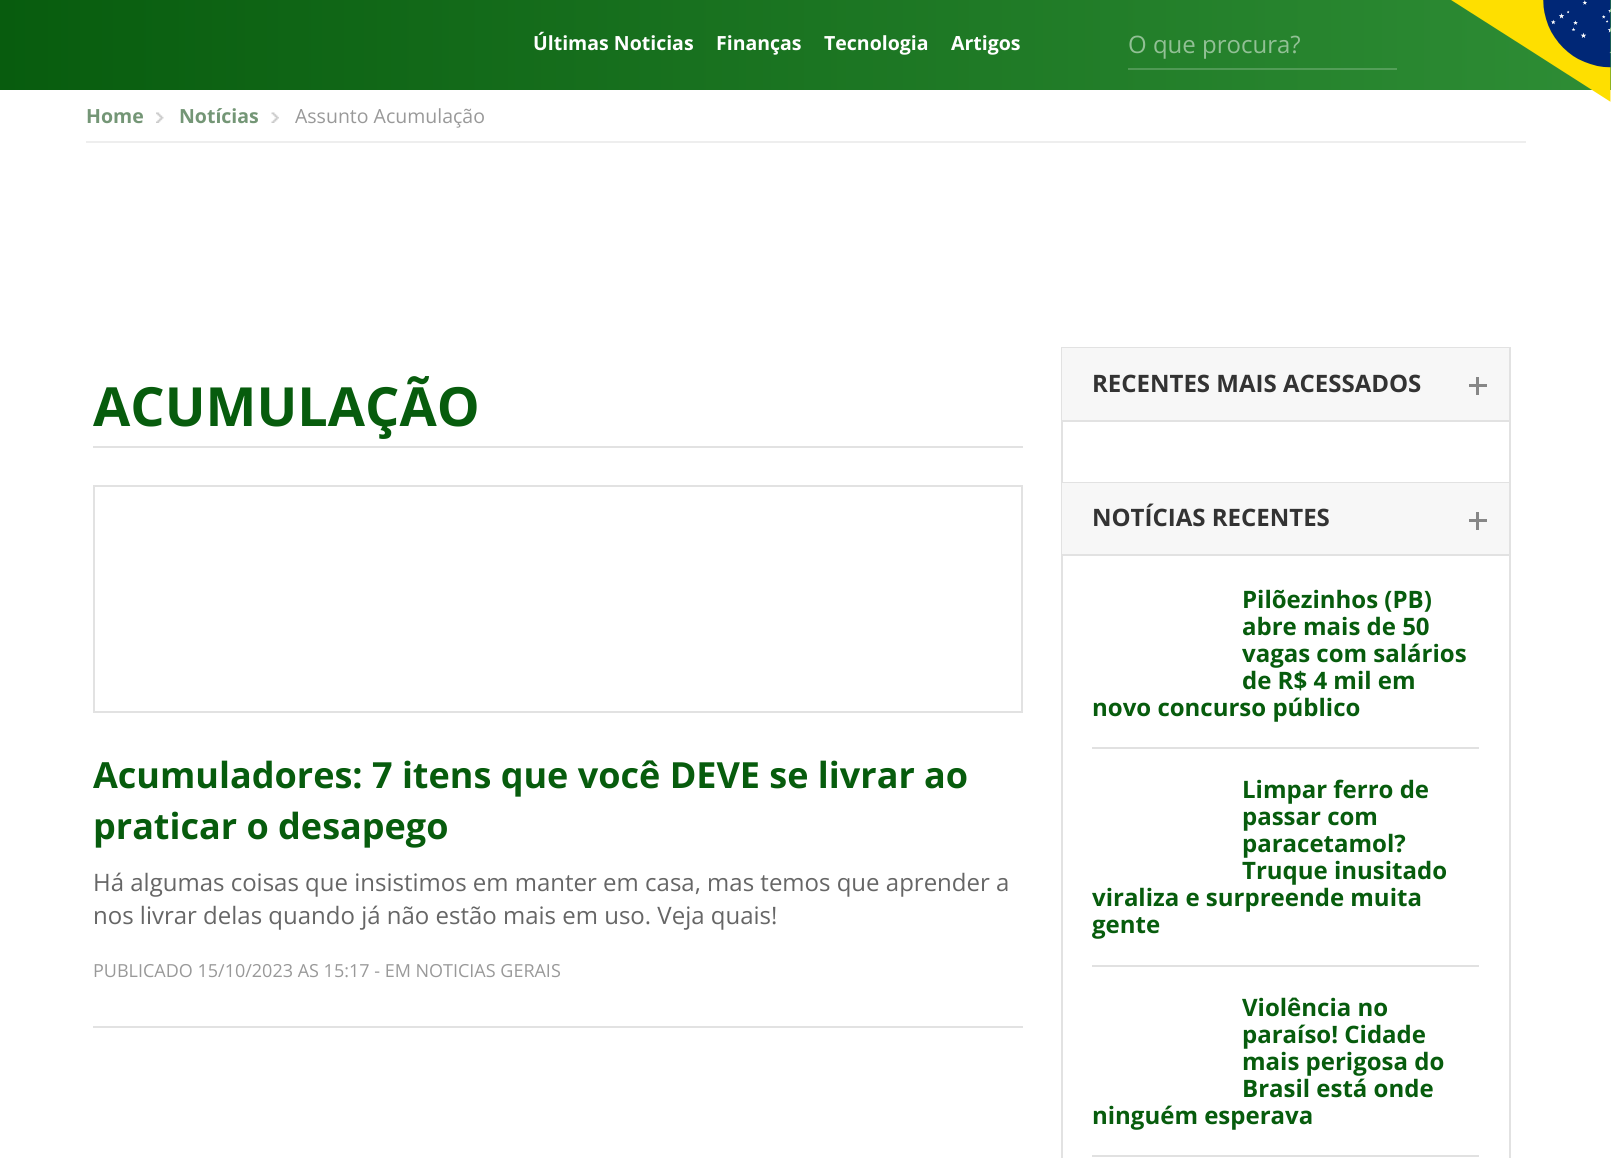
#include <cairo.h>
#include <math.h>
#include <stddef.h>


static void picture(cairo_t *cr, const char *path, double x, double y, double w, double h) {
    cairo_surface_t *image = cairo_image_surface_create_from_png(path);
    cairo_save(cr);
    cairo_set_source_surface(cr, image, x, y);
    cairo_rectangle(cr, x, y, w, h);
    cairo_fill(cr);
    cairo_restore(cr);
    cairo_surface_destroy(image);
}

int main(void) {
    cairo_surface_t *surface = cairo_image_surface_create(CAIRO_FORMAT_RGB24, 1611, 1158);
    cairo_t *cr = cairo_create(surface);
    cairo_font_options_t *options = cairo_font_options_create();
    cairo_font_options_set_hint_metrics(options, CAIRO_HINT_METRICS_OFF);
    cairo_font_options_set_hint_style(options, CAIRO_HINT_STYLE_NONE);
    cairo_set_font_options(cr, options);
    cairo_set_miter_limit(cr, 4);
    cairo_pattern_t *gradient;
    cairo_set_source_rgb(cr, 1, 1, 1);
    cairo_paint(cr);
    gradient = cairo_pattern_create_linear(1611, 45, 0, 45);
    cairo_pattern_add_color_stop_rgba(gradient, 0, 0.18, 0.553, 0.208, 1);
    cairo_pattern_add_color_stop_rgba(gradient, 1, 0.031, 0.361, 0.055, 1);
    cairo_set_source(cr, gradient);
    cairo_pattern_destroy(gradient);
    cairo_rectangle(cr, 0, 0, 1611, 90);
    cairo_fill(cr);
    gradient = cairo_pattern_create_linear(1611, 45, 0, 45);
    cairo_pattern_add_color_stop_rgba(gradient, 0, 0.345, 0.643, 0.365, 1);
    cairo_pattern_add_color_stop_rgba(gradient, 1, 0.224, 0.49, 0.243, 1);
    cairo_set_source(cr, gradient);
    cairo_pattern_destroy(gradient);
    cairo_rectangle(cr, 1128, 68, 269, 2);
    cairo_fill(cr);
    cairo_select_font_face(cr, "Open Sans", CAIRO_FONT_SLANT_NORMAL, CAIRO_FONT_WEIGHT_BOLD);
    cairo_set_font_size(cr, 19.5);
    cairo_set_source_rgb(cr, 1, 1, 1);
    cairo_move_to(cr, 533, 50);
    cairo_show_text(cr, "Últimas Noticias");
    cairo_move_to(cr, 716, 50);
    cairo_show_text(cr, "Finanças");
    cairo_move_to(cr, 824, 50);
    cairo_show_text(cr, "Tecnologia");
    cairo_move_to(cr, 951, 50);
    cairo_show_text(cr, "Artigos");
    cairo_select_font_face(cr, "Open Sans", CAIRO_FONT_SLANT_NORMAL, CAIRO_FONT_WEIGHT_NORMAL);
    cairo_set_font_size(cr, 24);
    cairo_set_source_rgb(cr, 0.573, 0.753, 0.584);
    cairo_move_to(cr, 1128, 53);
    cairo_show_text(cr, "O que procura?");
    picture(cr, "img1.png", 1451, 0, 160, 102);
    cairo_set_source_rgb(cr, 0.933, 0.933, 0.933);
    cairo_rectangle(cr, 86, 141, 1440, 2);
    cairo_fill(cr);
    cairo_select_font_face(cr, "Open Sans", CAIRO_FONT_SLANT_NORMAL, CAIRO_FONT_WEIGHT_BOLD);
    cairo_set_font_size(cr, 19.5);
    cairo_set_source_rgb(cr, 0.455, 0.588, 0.463);
    cairo_move_to(cr, 86, 123);
    cairo_show_text(cr, "Home");
    picture(cr, "img2.png", 156, 112, 8, 11);
    cairo_move_to(cr, 179, 123);
    cairo_show_text(cr, "Notícias");
    picture(cr, "img3.png", 271, 112, 8, 11);
    cairo_select_font_face(cr, "Open Sans", CAIRO_FONT_SLANT_NORMAL, CAIRO_FONT_WEIGHT_NORMAL);
    cairo_set_source_rgb(cr, 0.6, 0.6, 0.6);
    cairo_move_to(cr, 295, 123);
    cairo_show_text(cr, "Assunto Acumulação");
    cairo_set_source_rgb(cr, 0.886, 0.886, 0.886);
    cairo_rectangle(cr, 93, 446, 930, 2);
    cairo_fill(cr);
    cairo_select_font_face(cr, "Open Sans", CAIRO_FONT_SLANT_NORMAL, CAIRO_FONT_WEIGHT_BOLD);
    cairo_set_font_size(cr, 54);
    cairo_set_source_rgb(cr, 0.031, 0.361, 0.051);
    cairo_move_to(cr, 93, 426);
    cairo_show_text(cr, "ACUMULAÇÃO");
    cairo_set_source_rgb(cr, 0.886, 0.886, 0.886);
    cairo_rectangle(cr, 93, 1026, 930, 2);
    cairo_fill(cr);
    cairo_rectangle(cr, 94, 486, 928, 226);
    cairo_stroke(cr);
    cairo_set_font_size(cr, 36);
    cairo_set_source_rgb(cr, 0.031, 0.361, 0.051);
    cairo_move_to(cr, 93, 788);
    cairo_show_text(cr, "Acumuladores: 7 itens que você DEVE se livrar ao");
    cairo_move_to(cr, 93, 839);
    cairo_show_text(cr, "praticar o desapego");
    cairo_select_font_face(cr, "Open Sans", CAIRO_FONT_SLANT_NORMAL, CAIRO_FONT_WEIGHT_NORMAL);
    cairo_set_font_size(cr, 24);
    cairo_set_source_rgb(cr, 0.4, 0.4, 0.4);
    cairo_move_to(cr, 93, 891);
    cairo_show_text(cr, "Há algumas coisas que insistimos em manter em casa, mas temos que aprender a");
    cairo_move_to(cr, 93, 924);
    cairo_show_text(cr, "nos livrar delas quando já não estão mais em uso. Veja quais!");
    cairo_set_font_size(cr, 18);
    cairo_set_source_rgb(cr, 0.6, 0.6, 0.6);
    cairo_move_to(cr, 93, 977);
    cairo_show_text(cr, "PUBLICADO 15/10/2023 AS 15:17 - EM NOTICIAS GERAIS");
    cairo_set_source_rgb(cr, 0.886, 0.886, 0.886);
    cairo_rectangle(cr, 1061, 347, 450, 1);
    cairo_fill(cr);
    cairo_rectangle(cr, 1509, 347, 2, 135);
    cairo_fill(cr);
    cairo_rectangle(cr, 1061, 347, 2, 135);
    cairo_fill(cr);
    cairo_set_source_rgb(cr, 0.965, 0.965, 0.965);
    cairo_rectangle(cr, 1062, 348, 447, 72);
    cairo_fill(cr);
    cairo_set_source_rgb(cr, 0.886, 0.886, 0.886);
    cairo_rectangle(cr, 1062, 420, 447, 2);
    cairo_fill(cr);
    cairo_select_font_face(cr, "Open Sans", CAIRO_FONT_SLANT_NORMAL, CAIRO_FONT_WEIGHT_BOLD);
    cairo_set_font_size(cr, 24);
    cairo_set_source_rgb(cr, 0.2, 0.2, 0.2);
    cairo_move_to(cr, 1092, 392);
    cairo_show_text(cr, "RECENTES MAIS ACESSADOS");
    cairo_set_source_rgb(cr, 0.529, 0.529, 0.529);
    cairo_rectangle(cr, 1476, 377, 3, 18);
    cairo_fill(cr);
    cairo_rectangle(cr, 1469, 384, 18, 3);
    cairo_fill(cr);
    cairo_set_source_rgb(cr, 0.886, 0.886, 0.886);
    cairo_rectangle(cr, 1061, 482, 450, 1);
    cairo_fill(cr);
    cairo_rectangle(cr, 1509, 482, 2, 676);
    cairo_fill(cr);
    cairo_rectangle(cr, 1061, 482, 2, 676);
    cairo_fill(cr);
    cairo_set_source_rgb(cr, 0.965, 0.965, 0.965);
    cairo_rectangle(cr, 1062, 483, 447, 71);
    cairo_fill(cr);
    cairo_set_source_rgb(cr, 0.886, 0.886, 0.886);
    cairo_rectangle(cr, 1062, 554, 447, 2);
    cairo_fill(cr);
    cairo_set_source_rgb(cr, 0.2, 0.2, 0.2);
    cairo_move_to(cr, 1092, 526);
    cairo_show_text(cr, "NOTÍCIAS RECENTES");
    cairo_set_source_rgb(cr, 0.529, 0.529, 0.529);
    cairo_rectangle(cr, 1476, 512, 3, 18);
    cairo_fill(cr);
    cairo_rectangle(cr, 1469, 519, 18, 3);
    cairo_fill(cr);
    cairo_set_source_rgb(cr, 0.882, 0.882, 0.882);
    cairo_rectangle(cr, 1092, 747, 387, 2);
    cairo_fill(cr);
    cairo_set_source_rgb(cr, 0.031, 0.361, 0.051);
    cairo_move_to(cr, 1242, 608);
    cairo_show_text(cr, "Pilõezinhos (PB)");
    cairo_move_to(cr, 1242, 635);
    cairo_show_text(cr, "abre mais de 50");
    cairo_move_to(cr, 1242, 662);
    cairo_show_text(cr, "vagas com salários");
    cairo_move_to(cr, 1242, 689);
    cairo_show_text(cr, "de R$ 4 mil em");
    cairo_move_to(cr, 1092, 716);
    cairo_show_text(cr, "novo concurso público");
    cairo_set_source_rgb(cr, 0.882, 0.882, 0.882);
    cairo_rectangle(cr, 1092, 965, 387, 2);
    cairo_fill(cr);
    cairo_set_source_rgb(cr, 0.031, 0.361, 0.051);
    cairo_move_to(cr, 1242, 798);
    cairo_show_text(cr, "Limpar ferro de");
    cairo_move_to(cr, 1242, 825);
    cairo_show_text(cr, "passar com");
    cairo_move_to(cr, 1242, 852);
    cairo_show_text(cr, "paracetamol?");
    cairo_move_to(cr, 1242, 879);
    cairo_show_text(cr, "Truque inusitado");
    cairo_move_to(cr, 1092, 906);
    cairo_show_text(cr, "viraliza e surpreende muita");
    cairo_move_to(cr, 1092, 933);
    cairo_show_text(cr, "gente");
    cairo_set_source_rgb(cr, 0.882, 0.882, 0.882);
    cairo_rectangle(cr, 1092, 1155, 387, 2);
    cairo_fill(cr);
    cairo_set_source_rgb(cr, 0.031, 0.361, 0.051);
    cairo_move_to(cr, 1242, 1016);
    cairo_show_text(cr, "Violência no");
    cairo_move_to(cr, 1242, 1043);
    cairo_show_text(cr, "paraíso! Cidade");
    cairo_move_to(cr, 1242, 1070);
    cairo_show_text(cr, "mais perigosa do");
    cairo_move_to(cr, 1242, 1097);
    cairo_show_text(cr, "Brasil está onde");
    cairo_move_to(cr, 1092, 1124);
    cairo_show_text(cr, "ninguém esperava");
    cairo_surface_write_to_png(surface, "page.png");
    cairo_font_options_destroy(options);
    cairo_destroy(cr);
    cairo_surface_destroy(surface);
    return 0;
}
